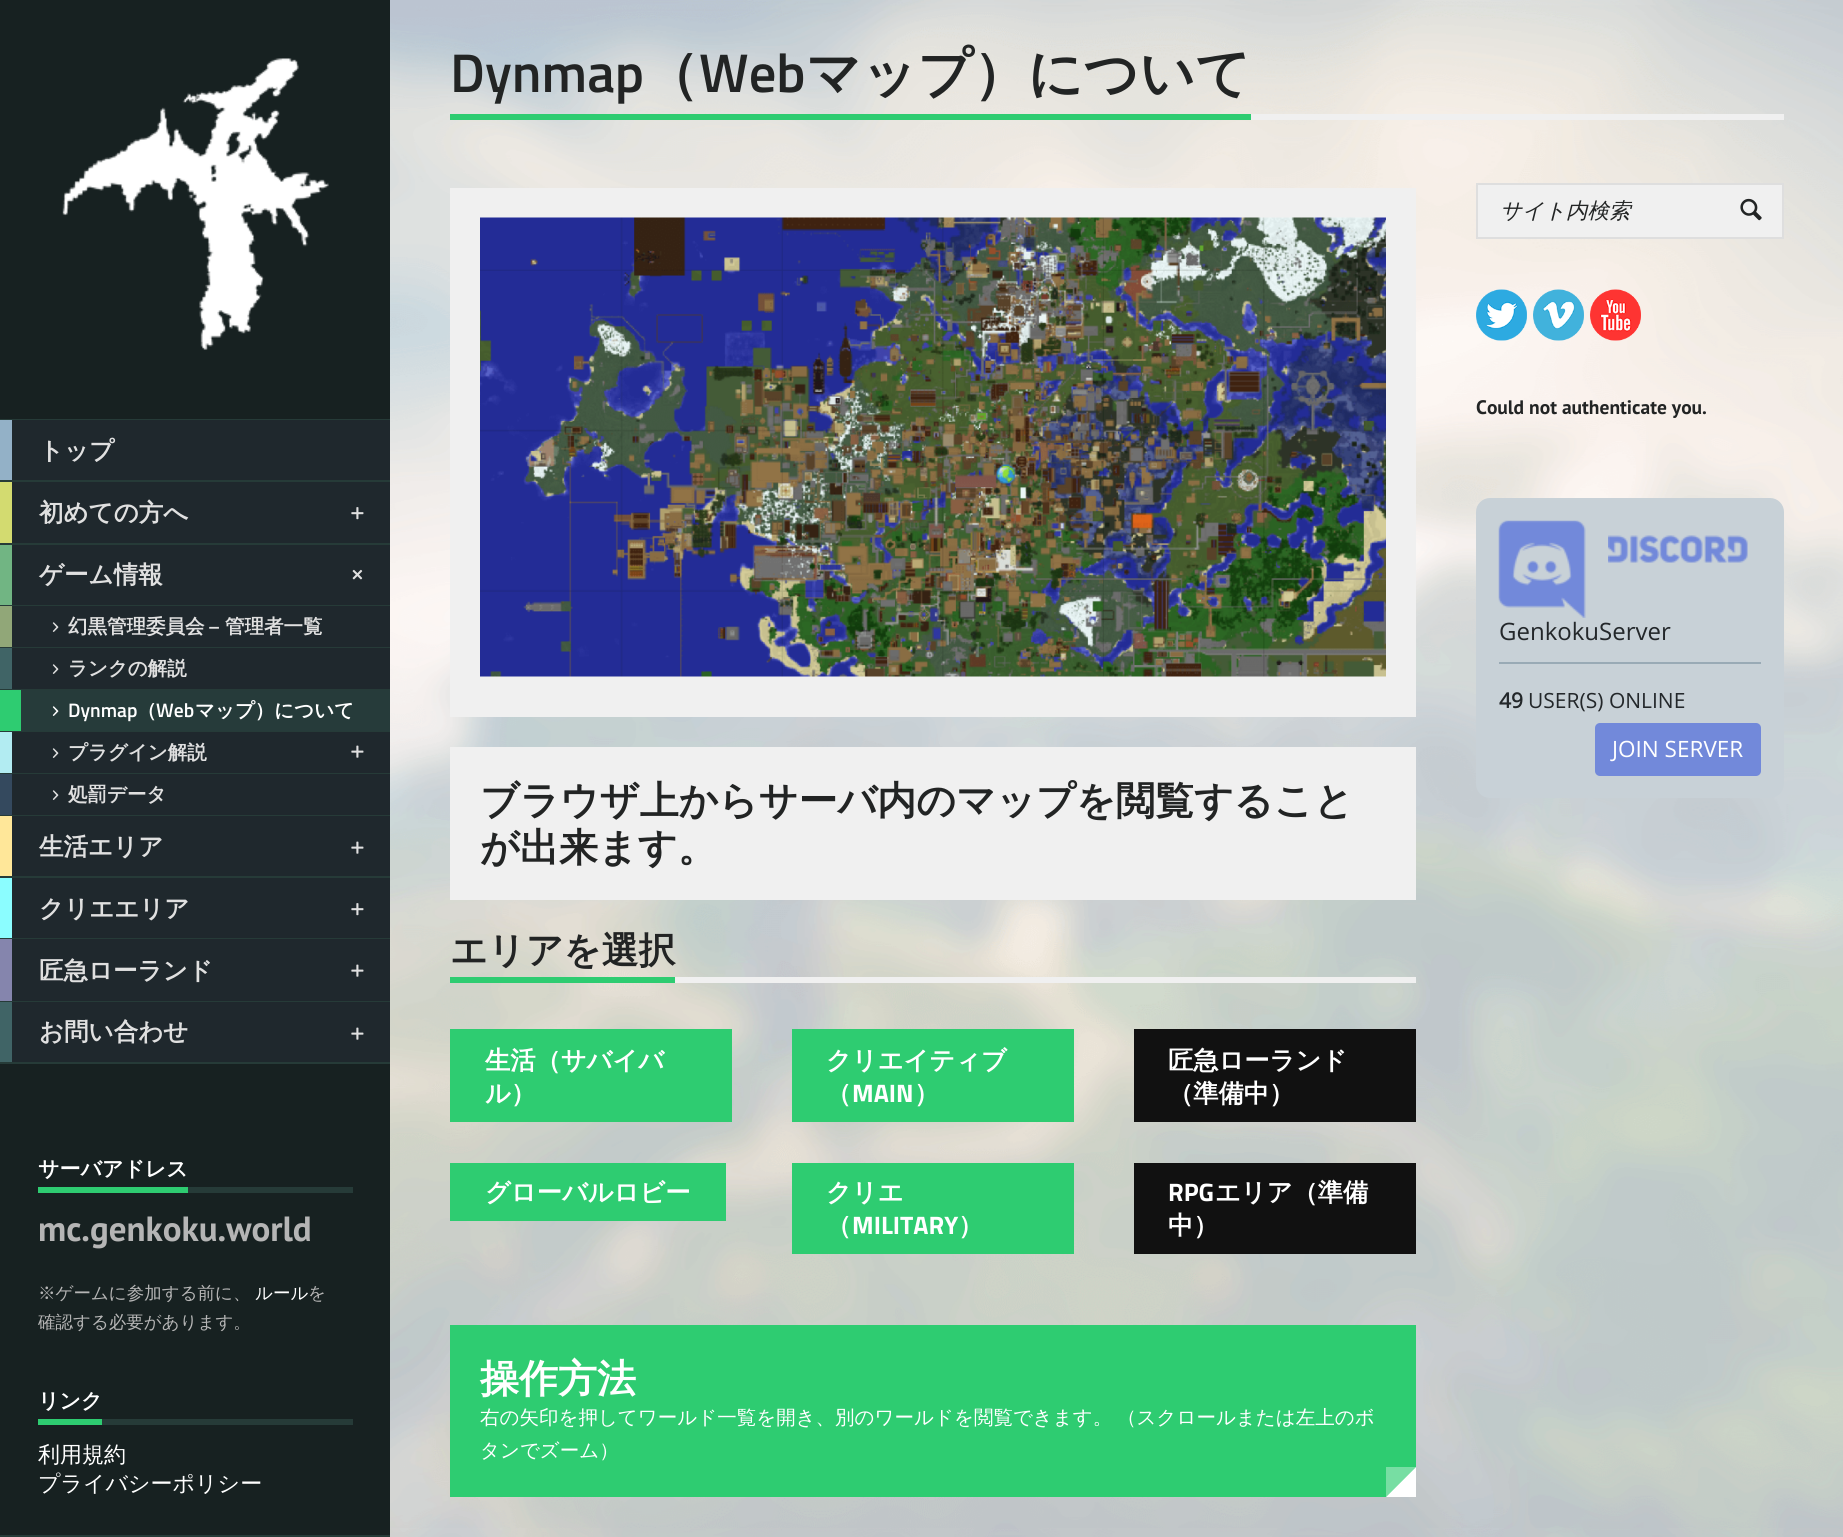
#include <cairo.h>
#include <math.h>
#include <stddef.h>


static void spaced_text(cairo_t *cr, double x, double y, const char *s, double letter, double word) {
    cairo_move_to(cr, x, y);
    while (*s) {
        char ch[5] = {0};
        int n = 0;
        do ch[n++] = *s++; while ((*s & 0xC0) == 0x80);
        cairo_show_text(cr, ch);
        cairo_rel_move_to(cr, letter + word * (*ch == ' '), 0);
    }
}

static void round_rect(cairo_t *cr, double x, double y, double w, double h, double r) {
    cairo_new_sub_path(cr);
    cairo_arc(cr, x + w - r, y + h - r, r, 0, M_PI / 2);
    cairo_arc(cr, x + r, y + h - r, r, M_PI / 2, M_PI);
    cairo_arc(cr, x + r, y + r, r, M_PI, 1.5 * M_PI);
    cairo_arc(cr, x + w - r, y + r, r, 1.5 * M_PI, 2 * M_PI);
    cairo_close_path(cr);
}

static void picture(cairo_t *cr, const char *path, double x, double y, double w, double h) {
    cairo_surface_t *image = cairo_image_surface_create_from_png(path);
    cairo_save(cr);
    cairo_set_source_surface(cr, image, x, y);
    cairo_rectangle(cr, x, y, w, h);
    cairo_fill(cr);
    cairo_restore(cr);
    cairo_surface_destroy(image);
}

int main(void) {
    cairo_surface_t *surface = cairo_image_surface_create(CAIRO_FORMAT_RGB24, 1843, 1537);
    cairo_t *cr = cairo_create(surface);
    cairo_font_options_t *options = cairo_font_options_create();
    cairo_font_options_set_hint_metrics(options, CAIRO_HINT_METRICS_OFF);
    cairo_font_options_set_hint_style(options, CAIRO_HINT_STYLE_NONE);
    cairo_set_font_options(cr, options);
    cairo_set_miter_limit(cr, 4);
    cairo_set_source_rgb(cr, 1, 1, 1);
    cairo_paint(cr);
    picture(cr, "img1.png", 390, 0, 1453, 1537);
    cairo_set_source_rgb(cr, 0.09, 0.129, 0.129);
    cairo_rectangle(cr, 0, 0, 390, 1535);
    cairo_fill(cr);
    picture(cr, "img2.png", 62, 58, 267, 292);
    cairo_set_source_rgb(cr, 0.149, 0.231, 0.22);
    cairo_rectangle(cr, 0, 419, 390, 1);
    cairo_fill(cr);
    cairo_set_source_rgb(cr, 0.122, 0.157, 0.176);
    cairo_rectangle(cr, 12, 420, 378, 60);
    cairo_fill(cr);
    cairo_set_source_rgb(cr, 0.149, 0.231, 0.22);
    cairo_rectangle(cr, 0, 480, 390, 2);
    cairo_fill(cr);
    cairo_set_source_rgb(cr, 0.576, 0.694, 0.78);
    cairo_rectangle(cr, 0, 420, 12, 60);
    cairo_fill(cr);
    cairo_select_font_face(cr, "WenQuanYi Zen Hei", CAIRO_FONT_SLANT_NORMAL, CAIRO_FONT_WEIGHT_BOLD);
    cairo_set_font_size(cr, 24.5);
    cairo_set_source_rgb(cr, 0.878, 0.878, 0.878);
    cairo_move_to(cr, 39, 459);
    cairo_show_text(cr, "トップ");
    cairo_set_source_rgb(cr, 0.122, 0.157, 0.176);
    cairo_rectangle(cr, 12, 482, 378, 61);
    cairo_fill(cr);
    cairo_set_source_rgb(cr, 0.149, 0.231, 0.22);
    cairo_rectangle(cr, 0, 543, 390, 2);
    cairo_fill(cr);
    cairo_set_source_rgb(cr, 0.827, 0.859, 0.439);
    cairo_rectangle(cr, 0, 482, 12, 61);
    cairo_fill(cr);
    cairo_set_source_rgb(cr, 0.878, 0.878, 0.878);
    cairo_move_to(cr, 39, 521);
    cairo_show_text(cr, "初めての方へ");
    picture(cr, "img3.png", 351, 507, 13, 13);
    cairo_set_source_rgb(cr, 0.122, 0.157, 0.176);
    cairo_rectangle(cr, 12, 545, 378, 60);
    cairo_fill(cr);
    cairo_set_source_rgb(cr, 0.149, 0.231, 0.22);
    cairo_rectangle(cr, 0, 605, 390, 1);
    cairo_fill(cr);
    cairo_set_source_rgb(cr, 0.443, 0.71, 0.514);
    cairo_rectangle(cr, 0, 545, 12, 60);
    cairo_fill(cr);
    cairo_set_source_rgb(cr, 0.878, 0.878, 0.878);
    cairo_move_to(cr, 39, 583);
    cairo_show_text(cr, "ゲーム情報");
    picture(cr, "img4.png", 352, 569, 11, 11);
    cairo_set_source_rgb(cr, 0.122, 0.157, 0.176);
    cairo_rectangle(cr, 12, 606, 378, 41);
    cairo_fill(cr);
    cairo_set_source_rgb(cr, 0.149, 0.231, 0.22);
    cairo_rectangle(cr, 0, 647, 390, 1);
    cairo_fill(cr);
    cairo_set_source_rgb(cr, 0.569, 0.655, 0.471);
    cairo_rectangle(cr, 0, 606, 12, 41);
    cairo_fill(cr);
    picture(cr, "img5.png", 52, 622, 7, 10);
    cairo_set_font_size(cr, 19.5);
    cairo_set_source_rgb(cr, 0.878, 0.878, 0.878);
    cairo_move_to(cr, 68, 633);
    cairo_show_text(cr, "幻黒管理委員会");
    cairo_select_font_face(cr, "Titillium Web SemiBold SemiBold", CAIRO_FONT_SLANT_NORMAL, CAIRO_FONT_WEIGHT_NORMAL);
    cairo_move_to(cr, 208, 633);
    cairo_show_text(cr, "–");
    cairo_select_font_face(cr, "WenQuanYi Zen Hei", CAIRO_FONT_SLANT_NORMAL, CAIRO_FONT_WEIGHT_BOLD);
    cairo_move_to(cr, 225, 633);
    cairo_show_text(cr, "管理者一覧");
    cairo_set_source_rgb(cr, 0.122, 0.157, 0.176);
    cairo_rectangle(cr, 12, 648, 378, 41);
    cairo_fill(cr);
    cairo_set_source_rgb(cr, 0.149, 0.231, 0.22);
    cairo_rectangle(cr, 0, 689, 390, 1);
    cairo_fill(cr);
    cairo_set_source_rgb(cr, 0.251, 0.392, 0.4);
    cairo_rectangle(cr, 0, 648, 12, 41);
    cairo_fill(cr);
    picture(cr, "img5.png", 52, 664, 7, 10);
    cairo_set_source_rgb(cr, 0.878, 0.878, 0.878);
    cairo_move_to(cr, 68, 675);
    cairo_show_text(cr, "ランクの解説");
    cairo_set_source_rgb(cr, 0.149, 0.231, 0.227);
    cairo_rectangle(cr, 21, 690, 369, 41);
    cairo_fill(cr);
    cairo_set_source_rgb(cr, 0.149, 0.231, 0.22);
    cairo_rectangle(cr, 0, 731, 390, 1);
    cairo_fill(cr);
    cairo_set_source_rgb(cr, 0.18, 0.8, 0.443);
    cairo_rectangle(cr, 0, 690, 21, 41);
    cairo_fill(cr);
    picture(cr, "img6.png", 52, 706, 7, 10);
    cairo_select_font_face(cr, "Titillium Web SemiBold SemiBold", CAIRO_FONT_SLANT_NORMAL, CAIRO_FONT_WEIGHT_NORMAL);
    cairo_set_source_rgb(cr, 1, 1, 1);
    cairo_move_to(cr, 68, 717);
    cairo_show_text(cr, "Dynmap");
    cairo_select_font_face(cr, "WenQuanYi Zen Hei", CAIRO_FONT_SLANT_NORMAL, CAIRO_FONT_WEIGHT_BOLD);
    cairo_move_to(cr, 137, 717);
    cairo_show_text(cr, "（");
    cairo_select_font_face(cr, "Titillium Web SemiBold SemiBold", CAIRO_FONT_SLANT_NORMAL, CAIRO_FONT_WEIGHT_NORMAL);
    cairo_move_to(cr, 156, 717);
    cairo_show_text(cr, "Web");
    cairo_select_font_face(cr, "WenQuanYi Zen Hei", CAIRO_FONT_SLANT_NORMAL, CAIRO_FONT_WEIGHT_BOLD);
    cairo_move_to(cr, 195, 717);
    cairo_show_text(cr, "マップ）について");
    cairo_set_source_rgb(cr, 0.122, 0.157, 0.176);
    cairo_rectangle(cr, 12, 732, 378, 41);
    cairo_fill(cr);
    cairo_set_source_rgb(cr, 0.149, 0.231, 0.22);
    cairo_rectangle(cr, 0, 773, 390, 1);
    cairo_fill(cr);
    cairo_set_source_rgb(cr, 0.698, 0.922, 0.949);
    cairo_rectangle(cr, 0, 732, 12, 41);
    cairo_fill(cr);
    picture(cr, "img5.png", 52, 748, 7, 10);
    cairo_set_source_rgb(cr, 0.878, 0.878, 0.878);
    cairo_move_to(cr, 68, 759);
    cairo_show_text(cr, "プラグイン解説");
    picture(cr, "img7.png", 351, 745, 13, 13);
    cairo_set_source_rgb(cr, 0.122, 0.157, 0.176);
    cairo_rectangle(cr, 12, 774, 378, 41);
    cairo_fill(cr);
    cairo_set_source_rgb(cr, 0.149, 0.231, 0.22);
    cairo_rectangle(cr, 0, 815, 390, 1);
    cairo_fill(cr);
    cairo_set_source_rgb(cr, 0.204, 0.286, 0.369);
    cairo_rectangle(cr, 0, 774, 12, 41);
    cairo_fill(cr);
    picture(cr, "img5.png", 52, 790, 7, 10);
    cairo_set_source_rgb(cr, 0.878, 0.878, 0.878);
    cairo_move_to(cr, 68, 801);
    cairo_show_text(cr, "処罰データ");
    cairo_set_source_rgb(cr, 0.122, 0.157, 0.176);
    cairo_rectangle(cr, 12, 816, 378, 60);
    cairo_fill(cr);
    cairo_set_source_rgb(cr, 0.149, 0.231, 0.22);
    cairo_rectangle(cr, 0, 876, 390, 2);
    cairo_fill(cr);
    cairo_set_source_rgb(cr, 1, 0.906, 0.6);
    cairo_rectangle(cr, 0, 816, 12, 60);
    cairo_fill(cr);
    cairo_set_font_size(cr, 24.5);
    cairo_set_source_rgb(cr, 0.878, 0.878, 0.878);
    cairo_move_to(cr, 39, 855);
    cairo_show_text(cr, "生活エリア");
    picture(cr, "img7.png", 351, 841, 13, 13);
    cairo_set_source_rgb(cr, 0.122, 0.157, 0.176);
    cairo_rectangle(cr, 12, 878, 378, 60);
    cairo_fill(cr);
    cairo_set_source_rgb(cr, 0.149, 0.231, 0.22);
    cairo_rectangle(cr, 0, 938, 390, 1);
    cairo_fill(cr);
    cairo_set_source_rgb(cr, 0.545, 0.992, 1);
    cairo_rectangle(cr, 0, 878, 12, 60);
    cairo_fill(cr);
    cairo_set_source_rgb(cr, 0.878, 0.878, 0.878);
    cairo_move_to(cr, 39, 917);
    cairo_show_text(cr, "クリエエリア");
    picture(cr, "img3.png", 351, 903, 13, 13);
    cairo_set_source_rgb(cr, 0.122, 0.157, 0.176);
    cairo_rectangle(cr, 12, 939, 378, 62);
    cairo_fill(cr);
    cairo_set_source_rgb(cr, 0.149, 0.231, 0.22);
    cairo_rectangle(cr, 0, 1001, 390, 1);
    cairo_fill(cr);
    cairo_set_source_rgb(cr, 0.522, 0.522, 0.678);
    cairo_rectangle(cr, 0, 939, 12, 62);
    cairo_fill(cr);
    cairo_set_source_rgb(cr, 0.878, 0.878, 0.878);
    cairo_move_to(cr, 39, 979);
    cairo_show_text(cr, "匠急ローランド");
    picture(cr, "img7.png", 351, 964, 13, 13);
    cairo_set_source_rgb(cr, 0.122, 0.157, 0.176);
    cairo_rectangle(cr, 12, 1002, 378, 60);
    cairo_fill(cr);
    cairo_set_source_rgb(cr, 0.149, 0.231, 0.22);
    cairo_rectangle(cr, 0, 1062, 390, 2);
    cairo_fill(cr);
    cairo_set_source_rgb(cr, 0.251, 0.392, 0.4);
    cairo_rectangle(cr, 0, 1002, 12, 60);
    cairo_fill(cr);
    cairo_set_source_rgb(cr, 0.878, 0.878, 0.878);
    cairo_move_to(cr, 39, 1040);
    cairo_show_text(cr, "お問い合わせ");
    picture(cr, "img7.png", 351, 1027, 13, 13);
    cairo_set_source_rgb(cr, 0.18, 0.8, 0.443);
    cairo_rectangle(cr, 38, 1187, 150, 6);
    cairo_fill(cr);
    cairo_set_font_size(cr, 21);
    cairo_set_source_rgb(cr, 1, 1, 1);
    cairo_move_to(cr, 38, 1176);
    cairo_show_text(cr, "サーバアドレス");
    cairo_set_source_rgb(cr, 0.149, 0.231, 0.22);
    cairo_rectangle(cr, 188, 1187, 165, 6);
    cairo_fill(cr);
    cairo_select_font_face(cr, "PT Sans", CAIRO_FONT_SLANT_NORMAL, CAIRO_FONT_WEIGHT_BOLD);
    cairo_set_font_size(cr, 35);
    cairo_set_source_rgb(cr, 0.71, 0.71, 0.71);
    cairo_move_to(cr, 38, 1241);
    cairo_show_text(cr, "mc.genkoku.world");
    cairo_select_font_face(cr, "WenQuanYi Zen Hei Medium", CAIRO_FONT_SLANT_NORMAL, CAIRO_FONT_WEIGHT_NORMAL);
    cairo_set_font_size(cr, 17.5);
    cairo_move_to(cr, 38, 1299);
    cairo_show_text(cr, "※ゲームに参加する前に、");
    cairo_set_source_rgb(cr, 1, 1, 1);
    cairo_move_to(cr, 255, 1299);
    cairo_show_text(cr, "ルール");
    cairo_set_source_rgb(cr, 0.71, 0.71, 0.71);
    cairo_move_to(cr, 308, 1299);
    cairo_show_text(cr, "を");
    cairo_move_to(cr, 38, 1328);
    cairo_show_text(cr, "確認する必要があります。");
    cairo_set_source_rgb(cr, 0.18, 0.8, 0.443);
    cairo_rectangle(cr, 38, 1419, 64, 6);
    cairo_fill(cr);
    cairo_select_font_face(cr, "WenQuanYi Zen Hei", CAIRO_FONT_SLANT_NORMAL, CAIRO_FONT_WEIGHT_BOLD);
    cairo_set_font_size(cr, 21);
    cairo_set_source_rgb(cr, 1, 1, 1);
    cairo_move_to(cr, 38, 1408);
    cairo_show_text(cr, "リンク");
    cairo_set_source_rgb(cr, 0.149, 0.231, 0.22);
    cairo_rectangle(cr, 102, 1419, 251, 6);
    cairo_fill(cr);
    cairo_select_font_face(cr, "WenQuanYi Zen Hei Medium", CAIRO_FONT_SLANT_NORMAL, CAIRO_FONT_WEIGHT_NORMAL);
    cairo_set_font_size(cr, 22);
    cairo_set_source_rgb(cr, 1, 1, 1);
    cairo_move_to(cr, 38, 1462);
    cairo_show_text(cr, "利用規約");
    cairo_move_to(cr, 38, 1491);
    cairo_show_text(cr, "プライバシーポリシー");
    cairo_set_source_rgb(cr, 0.149, 0.231, 0.22);
    cairo_rectangle(cr, 0, 1535, 390, 2);
    cairo_fill(cr);
    cairo_set_source_rgb(cr, 0.18, 0.8, 0.443);
    cairo_rectangle(cr, 450, 114, 801, 6);
    cairo_fill(cr);
    cairo_select_font_face(cr, "Titillium Web SemiBold SemiBold", CAIRO_FONT_SLANT_NORMAL, CAIRO_FONT_WEIGHT_NORMAL);
    cairo_set_font_size(cr, 54.5);
    cairo_set_source_rgb(cr, 0.133, 0.141, 0.141);
    cairo_move_to(cr, 450, 92);
    cairo_show_text(cr, "Dynmap");
    cairo_select_font_face(cr, "WenQuanYi Zen Hei", CAIRO_FONT_SLANT_NORMAL, CAIRO_FONT_WEIGHT_BOLD);
    cairo_move_to(cr, 644, 92);
    cairo_show_text(cr, "（");
    cairo_select_font_face(cr, "Titillium Web SemiBold SemiBold", CAIRO_FONT_SLANT_NORMAL, CAIRO_FONT_WEIGHT_NORMAL);
    cairo_move_to(cr, 699, 92);
    cairo_show_text(cr, "Web");
    cairo_select_font_face(cr, "WenQuanYi Zen Hei", CAIRO_FONT_SLANT_NORMAL, CAIRO_FONT_WEIGHT_BOLD);
    cairo_move_to(cr, 806, 92);
    cairo_show_text(cr, "マップ）について");
    cairo_set_source_rgb(cr, 0.941, 0.941, 0.941);
    cairo_rectangle(cr, 1251, 114, 533, 6);
    cairo_fill(cr);
    cairo_rectangle(cr, 1477, 184, 306, 54);
    cairo_fill_preserve(cr);
    cairo_set_source_rgb(cr, 0.871, 0.871, 0.871);
    cairo_stroke(cr);
    cairo_select_font_face(cr, "WenQuanYi Zen Hei Medium", CAIRO_FONT_SLANT_ITALIC, CAIRO_FONT_WEIGHT_NORMAL);
    cairo_set_font_size(cr, 21.5);
    cairo_set_source_rgb(cr, 0.133, 0.141, 0.141);
    cairo_move_to(cr, 1500, 218);
    cairo_show_text(cr, "サイト内検索");
    picture(cr, "img8.png", 1740, 198, 22, 23);
    picture(cr, "img9.png", 1476, 289, 51, 52);
    picture(cr, "img10.png", 1533, 289, 51, 52);
    picture(cr, "img11.png", 1590, 289, 51, 52);
    cairo_select_font_face(cr, "PT Sans", CAIRO_FONT_SLANT_NORMAL, CAIRO_FONT_WEIGHT_BOLD);
    cairo_set_font_size(cr, 19.5);
    cairo_move_to(cr, 1476, 414);
    cairo_show_text(cr, "Could not authenticate you.");
    cairo_set_source_rgb(cr, 0.784, 0.82, 0.843);
    round_rect(cr, 1476, 498, 308, 300, 14);
    cairo_fill(cr);
    cairo_set_source_rgb(cr, 0.6, 0.667, 0.71);
    cairo_rectangle(cr, 1499, 662, 262, 2);
    cairo_fill(cr);
    picture(cr, "img12.png", 1498, 520, 88, 98);
    picture(cr, "img13.png", 1608, 535, 140, 28);
    cairo_select_font_face(cr, "Open Sans", CAIRO_FONT_SLANT_NORMAL, CAIRO_FONT_WEIGHT_NORMAL);
    cairo_set_font_size(cr, 24);
    cairo_set_source_rgb(cr, 0.137, 0.153, 0.165);
    cairo_move_to(cr, 1499, 640);
    cairo_show_text(cr, "GenkokuServer");
    cairo_select_font_face(cr, "Open Sans", CAIRO_FONT_SLANT_NORMAL, CAIRO_FONT_WEIGHT_BOLD);
    cairo_set_font_size(cr, 21);
    cairo_move_to(cr, 1499, 708);
    cairo_show_text(cr, "49");
    cairo_select_font_face(cr, "Open Sans", CAIRO_FONT_SLANT_NORMAL, CAIRO_FONT_WEIGHT_NORMAL);
    cairo_move_to(cr, 1528, 708);
    cairo_show_text(cr, "USER(S) ONLINE");
    cairo_set_source_rgb(cr, 0.447, 0.537, 0.855);
    round_rect(cr, 1595, 723, 166, 53, 5);
    cairo_fill(cr);
    cairo_set_font_size(cr, 22.5);
    cairo_set_source_rgb(cr, 1, 1, 1);
    cairo_move_to(cr, 1612, 757);
    cairo_show_text(cr, "JOIN SERVER");
    cairo_set_source_rgb(cr, 0.941, 0.941, 0.941);
    cairo_rectangle(cr, 450, 188, 966, 529);
    cairo_fill(cr);
    picture(cr, "img14.png", 480, 217, 906, 460);
    cairo_rectangle(cr, 450, 747, 966, 153);
    cairo_fill(cr);
    cairo_select_font_face(cr, "WenQuanYi Zen Hei", CAIRO_FONT_SLANT_NORMAL, CAIRO_FONT_WEIGHT_BOLD);
    cairo_set_font_size(cr, 39);
    cairo_set_source_rgb(cr, 0.133, 0.141, 0.141);
    cairo_move_to(cr, 480, 814);
    cairo_show_text(cr, "ブラウザ上からサーバ内のマップを閲覧すること");
    cairo_move_to(cr, 480, 861);
    cairo_show_text(cr, "が出来ます。");
    cairo_set_source_rgb(cr, 0.18, 0.8, 0.443);
    cairo_rectangle(cr, 450, 977, 225, 6);
    cairo_fill(cr);
    cairo_set_font_size(cr, 37);
    cairo_set_source_rgb(cr, 0.133, 0.141, 0.141);
    cairo_move_to(cr, 450, 963);
    cairo_show_text(cr, "エリアを選択");
    cairo_set_source_rgb(cr, 0.941, 0.941, 0.941);
    cairo_rectangle(cr, 675, 977, 741, 6);
    cairo_fill(cr);
    cairo_set_source_rgb(cr, 0.18, 0.8, 0.443);
    cairo_rectangle(cr, 450, 1029, 282, 93);
    cairo_fill(cr);
    cairo_set_font_size(cr, 25.25);
    cairo_set_source_rgb(cr, 1, 1, 1);
    cairo_move_to(cr, 485, 1069);
    cairo_show_text(cr, "生活（サバイバ");
    cairo_move_to(cr, 485, 1102);
    cairo_show_text(cr, "ル）");
    cairo_set_source_rgb(cr, 0.18, 0.8, 0.443);
    cairo_rectangle(cr, 450, 1163, 276, 58);
    cairo_fill(cr);
    cairo_set_source_rgb(cr, 1, 1, 1);
    cairo_move_to(cr, 485, 1201);
    cairo_show_text(cr, "グローバルロビー");
    cairo_set_source_rgb(cr, 0.18, 0.8, 0.443);
    cairo_rectangle(cr, 792, 1029, 282, 93);
    cairo_fill(cr);
    cairo_set_source_rgb(cr, 1, 1, 1);
    cairo_move_to(cr, 826, 1069);
    cairo_show_text(cr, "クリエイティブ");
    cairo_move_to(cr, 826, 1102);
    cairo_show_text(cr, "（");
    cairo_select_font_face(cr, "Titillium Web", CAIRO_FONT_SLANT_NORMAL, CAIRO_FONT_WEIGHT_BOLD);
    cairo_move_to(cr, 852, 1102);
    cairo_show_text(cr, "MAIN");
    cairo_select_font_face(cr, "WenQuanYi Zen Hei", CAIRO_FONT_SLANT_NORMAL, CAIRO_FONT_WEIGHT_BOLD);
    cairo_move_to(cr, 914, 1102);
    cairo_show_text(cr, "）");
    cairo_set_source_rgb(cr, 0.18, 0.8, 0.443);
    cairo_rectangle(cr, 792, 1163, 282, 91);
    cairo_fill(cr);
    cairo_set_source_rgb(cr, 1, 1, 1);
    cairo_move_to(cr, 826, 1201);
    cairo_show_text(cr, "クリエ");
    cairo_move_to(cr, 826, 1234);
    cairo_show_text(cr, "（");
    cairo_select_font_face(cr, "Titillium Web", CAIRO_FONT_SLANT_NORMAL, CAIRO_FONT_WEIGHT_BOLD);
    cairo_move_to(cr, 852, 1234);
    cairo_show_text(cr, "MILITARY");
    cairo_select_font_face(cr, "WenQuanYi Zen Hei", CAIRO_FONT_SLANT_NORMAL, CAIRO_FONT_WEIGHT_BOLD);
    cairo_move_to(cr, 958, 1234);
    cairo_show_text(cr, "）");
    cairo_set_source_rgb(cr, 0.067, 0.067, 0.067);
    cairo_rectangle(cr, 1134, 1029, 282, 93);
    cairo_fill(cr);
    cairo_set_source_rgb(cr, 1, 1, 1);
    cairo_move_to(cr, 1168, 1069);
    cairo_show_text(cr, "匠急ローランド");
    cairo_move_to(cr, 1168, 1102);
    cairo_show_text(cr, "（準備中）");
    cairo_set_source_rgb(cr, 0.067, 0.067, 0.067);
    cairo_rectangle(cr, 1134, 1163, 282, 91);
    cairo_fill(cr);
    cairo_select_font_face(cr, "Titillium Web", CAIRO_FONT_SLANT_NORMAL, CAIRO_FONT_WEIGHT_BOLD);
    cairo_set_source_rgb(cr, 1, 1, 1);
    cairo_move_to(cr, 1168, 1201);
    cairo_show_text(cr, "RPG");
    cairo_select_font_face(cr, "WenQuanYi Zen Hei", CAIRO_FONT_SLANT_NORMAL, CAIRO_FONT_WEIGHT_BOLD);
    cairo_move_to(cr, 1215, 1201);
    cairo_show_text(cr, "エリア（準備");
    cairo_move_to(cr, 1168, 1234);
    cairo_show_text(cr, "中）");
    cairo_set_source_rgb(cr, 0.18, 0.8, 0.443);
    cairo_rectangle(cr, 450, 1325, 966, 172);
    cairo_fill(cr);
    cairo_set_font_size(cr, 39);
    cairo_set_source_rgb(cr, 1, 1, 1);
    cairo_move_to(cr, 480, 1392);
    cairo_show_text(cr, "操作方法");
    cairo_select_font_face(cr, "WenQuanYi Zen Hei Medium", CAIRO_FONT_SLANT_NORMAL, CAIRO_FONT_WEIGHT_NORMAL);
    cairo_set_font_size(cr, 19.5);
    spaced_text(cr, 480, 1424, "右の矢印を押してワールド一覧を開き、別のワールドを閲覧できます。 （スクロールまたは左上のボ", 0, -1);
    cairo_move_to(cr, 480, 1457);
    cairo_show_text(cr, "タンでズーム）");
    cairo_new_path(cr);
    cairo_move_to(cr, 1416, 1497);
    cairo_line_to(cr, 1386, 1497);
    cairo_line_to(cr, 1416, 1467);
    cairo_close_path(cr);
    cairo_fill(cr);
    cairo_set_source_rgba(cr, 1, 1, 1, 0.35);
    cairo_new_path(cr);
    cairo_move_to(cr, 1386, 1497);
    cairo_line_to(cr, 1386, 1467);
    cairo_line_to(cr, 1416, 1467);
    cairo_close_path(cr);
    cairo_fill(cr);
    cairo_surface_write_to_png(surface, "page.png");
    cairo_font_options_destroy(options);
    cairo_destroy(cr);
    cairo_surface_destroy(surface);
    return 0;
}
